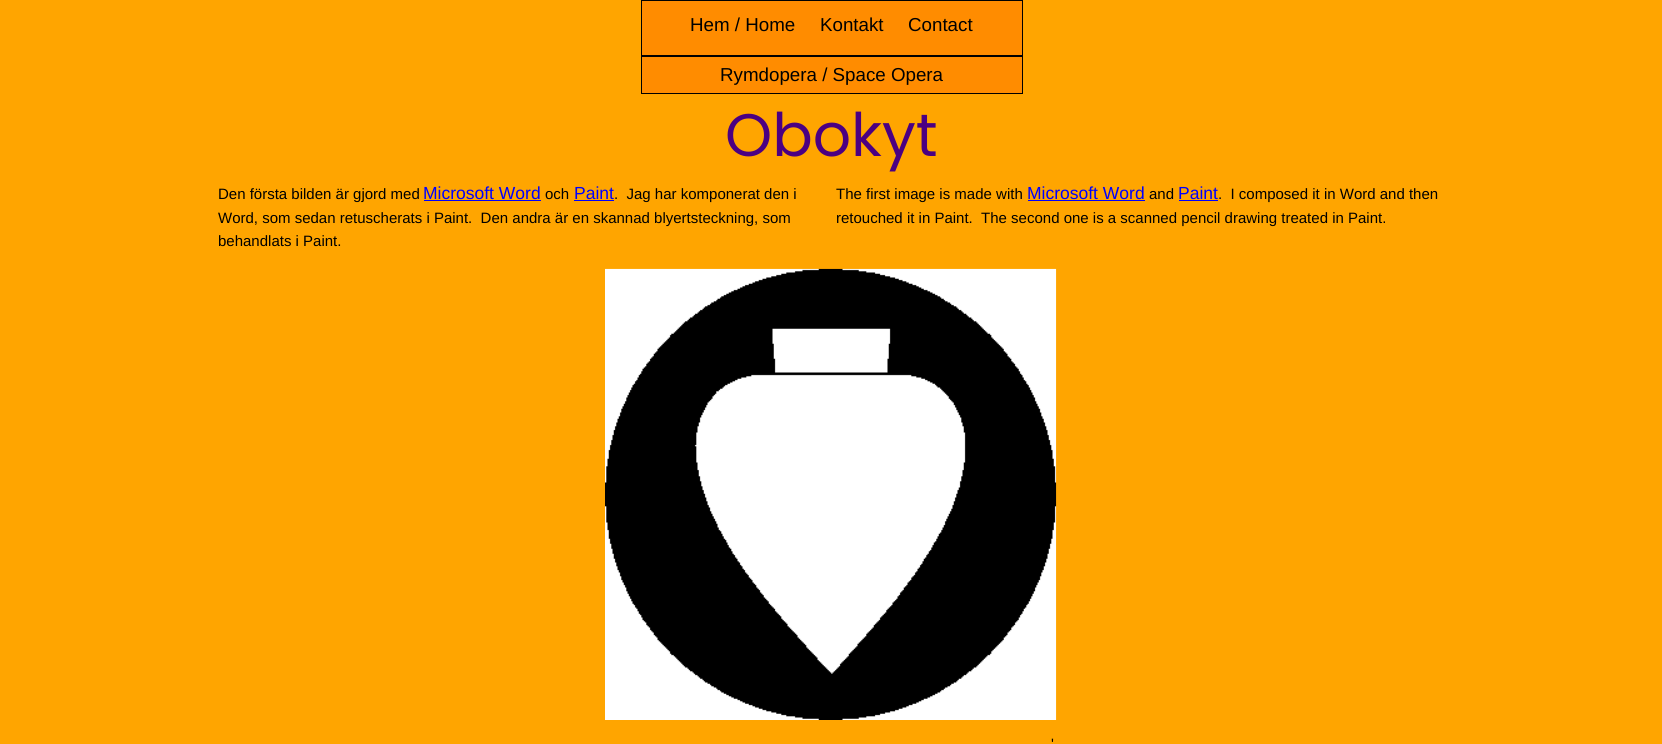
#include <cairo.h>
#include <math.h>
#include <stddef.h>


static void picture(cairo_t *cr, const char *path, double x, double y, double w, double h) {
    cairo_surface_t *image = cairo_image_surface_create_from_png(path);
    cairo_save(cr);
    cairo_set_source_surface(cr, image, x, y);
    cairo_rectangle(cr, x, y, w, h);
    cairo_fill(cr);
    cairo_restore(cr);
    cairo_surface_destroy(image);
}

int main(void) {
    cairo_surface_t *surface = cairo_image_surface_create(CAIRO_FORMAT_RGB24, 1662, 744);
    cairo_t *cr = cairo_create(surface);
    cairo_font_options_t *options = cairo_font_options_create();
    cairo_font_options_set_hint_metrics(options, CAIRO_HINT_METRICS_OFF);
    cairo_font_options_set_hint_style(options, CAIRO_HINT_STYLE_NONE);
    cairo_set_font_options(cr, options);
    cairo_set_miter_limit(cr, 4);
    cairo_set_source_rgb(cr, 1, 0.647, 0);
    cairo_paint(cr);
    cairo_set_source_rgb(cr, 1, 0.549, 0);
    cairo_rectangle(cr, 641.5, 0.5, 381, 55);
    cairo_fill_preserve(cr);
    cairo_set_source_rgb(cr, 0, 0, 0);
    cairo_set_line_width(cr, 1);
    cairo_stroke(cr);
    cairo_select_font_face(cr, "Liberation Sans", CAIRO_FONT_SLANT_NORMAL, CAIRO_FONT_WEIGHT_NORMAL);
    cairo_set_font_size(cr, 18.75);
    cairo_move_to(cr, 690, 31);
    cairo_show_text(cr, "Hem / Home");
    cairo_move_to(cr, 820, 31);
    cairo_show_text(cr, "Kontakt");
    cairo_move_to(cr, 908, 31);
    cairo_show_text(cr, "Contact");
    cairo_set_source_rgb(cr, 1, 0.549, 0);
    cairo_rectangle(cr, 641.5, 56.5, 381, 37);
    cairo_fill_preserve(cr);
    cairo_set_source_rgb(cr, 0, 0, 0);
    cairo_stroke(cr);
    cairo_move_to(cr, 720, 81);
    cairo_show_text(cr, "Rymdopera / Space Opera");
    cairo_select_font_face(cr, "Poppins", CAIRO_FONT_SLANT_NORMAL, CAIRO_FONT_WEIGHT_NORMAL);
    cairo_set_font_size(cr, 60);
    cairo_set_source_rgb(cr, 0.294, 0, 0.51);
    cairo_move_to(cr, 725, 156);
    cairo_show_text(cr, "Obokyt");
    cairo_select_font_face(cr, "Liberation Sans", CAIRO_FONT_SLANT_NORMAL, CAIRO_FONT_WEIGHT_NORMAL);
    cairo_set_font_size(cr, 15);
    cairo_set_source_rgb(cr, 0, 0, 0);
    cairo_move_to(cr, 218, 199);
    cairo_show_text(cr, "Den första bilden är gjord med");
    cairo_set_source_rgb(cr, 0, 0, 1);
    cairo_rectangle(cr, 424, 200, 117, 1);
    cairo_fill(cr);
    cairo_set_font_size(cr, 17.5);
    cairo_move_to(cr, 423, 199);
    cairo_show_text(cr, "Microsoft Word");
    cairo_set_font_size(cr, 15);
    cairo_set_source_rgb(cr, 0, 0, 0);
    cairo_move_to(cr, 545, 199);
    cairo_show_text(cr, "och");
    cairo_set_font_size(cr, 17.5);
    cairo_set_source_rgb(cr, 0, 0, 1);
    cairo_move_to(cr, 574, 199);
    cairo_show_text(cr, "Paint");
    cairo_set_font_size(cr, 15);
    cairo_set_source_rgb(cr, 0, 0, 0);
    cairo_move_to(cr, 614, 199);
    cairo_show_text(cr, ".  Jag har komponerat den i");
    cairo_set_source_rgb(cr, 0, 0, 1);
    cairo_rectangle(cr, 574, 200, 40, 1);
    cairo_fill(cr);
    cairo_set_source_rgb(cr, 0, 0, 0);
    cairo_move_to(cr, 218, 223);
    cairo_show_text(cr, "Word, som sedan retuscherats i Paint.  Den andra är en skannad blyertsteckning, som");
    cairo_move_to(cr, 218, 246);
    cairo_show_text(cr, "behandlats i Paint.");
    cairo_move_to(cr, 836, 199);
    cairo_show_text(cr, "The first image is made with");
    cairo_set_source_rgb(cr, 0, 0, 1);
    cairo_rectangle(cr, 1028, 200, 117, 1);
    cairo_fill(cr);
    cairo_set_font_size(cr, 17.5);
    cairo_move_to(cr, 1027, 199);
    cairo_show_text(cr, "Microsoft Word");
    cairo_set_font_size(cr, 15);
    cairo_set_source_rgb(cr, 0, 0, 0);
    cairo_move_to(cr, 1149, 199);
    cairo_show_text(cr, "and");
    cairo_set_font_size(cr, 17.5);
    cairo_set_source_rgb(cr, 0, 0, 1);
    cairo_move_to(cr, 1178, 199);
    cairo_show_text(cr, "Paint");
    cairo_set_font_size(cr, 15);
    cairo_set_source_rgb(cr, 0, 0, 0);
    cairo_move_to(cr, 1218, 199);
    cairo_show_text(cr, ".  I composed it in Word and then");
    cairo_set_source_rgb(cr, 0, 0, 1);
    cairo_rectangle(cr, 1179, 200, 39, 1);
    cairo_fill(cr);
    cairo_set_source_rgb(cr, 0, 0, 0);
    cairo_move_to(cr, 836, 223);
    cairo_show_text(cr, "retouched it in Paint.  The second one is a scanned pencil drawing treated in Paint.");
    picture(cr, "img1.png", 605, 268, 452, 452);
    cairo_move_to(cr, 1051, 749);
    cairo_show_text(cr, "'");
    cairo_surface_write_to_png(surface, "page.png");
    cairo_font_options_destroy(options);
    cairo_destroy(cr);
    cairo_surface_destroy(surface);
    return 0;
}
